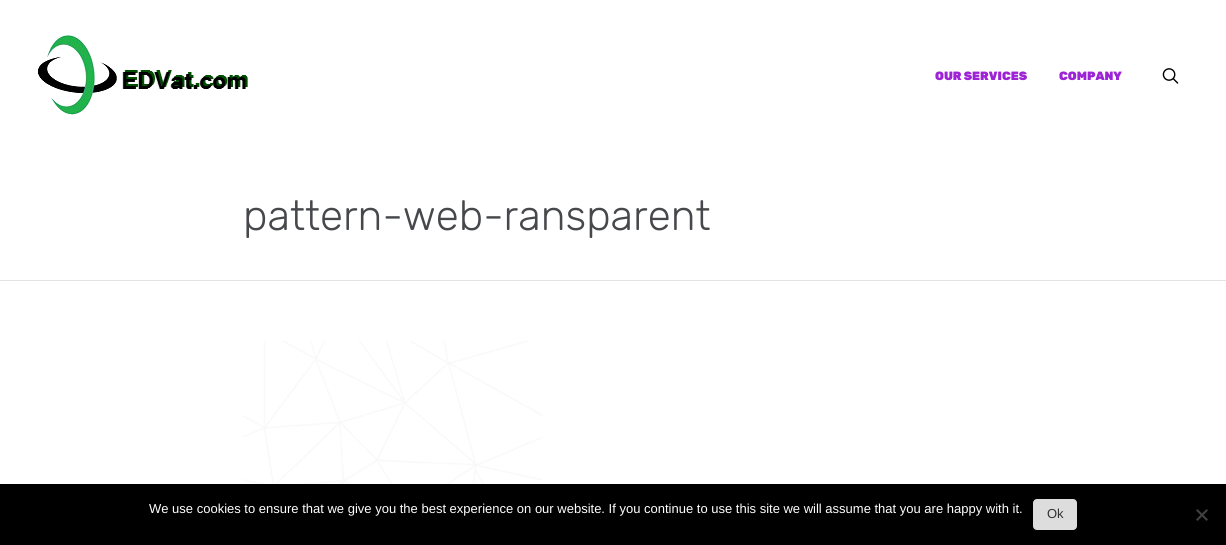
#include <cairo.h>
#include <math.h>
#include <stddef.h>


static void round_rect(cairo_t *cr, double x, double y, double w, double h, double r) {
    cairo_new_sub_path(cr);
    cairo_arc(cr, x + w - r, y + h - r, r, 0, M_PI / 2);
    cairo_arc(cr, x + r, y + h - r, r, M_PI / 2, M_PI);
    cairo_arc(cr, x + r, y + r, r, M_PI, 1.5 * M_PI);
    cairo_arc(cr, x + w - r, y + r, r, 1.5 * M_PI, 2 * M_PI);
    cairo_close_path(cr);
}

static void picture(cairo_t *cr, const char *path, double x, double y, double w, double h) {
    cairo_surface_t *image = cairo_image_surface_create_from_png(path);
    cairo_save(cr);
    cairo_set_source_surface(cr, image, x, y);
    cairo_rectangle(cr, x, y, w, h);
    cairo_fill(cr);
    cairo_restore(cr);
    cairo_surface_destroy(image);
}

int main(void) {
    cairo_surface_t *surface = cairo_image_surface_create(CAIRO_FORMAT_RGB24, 1226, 545);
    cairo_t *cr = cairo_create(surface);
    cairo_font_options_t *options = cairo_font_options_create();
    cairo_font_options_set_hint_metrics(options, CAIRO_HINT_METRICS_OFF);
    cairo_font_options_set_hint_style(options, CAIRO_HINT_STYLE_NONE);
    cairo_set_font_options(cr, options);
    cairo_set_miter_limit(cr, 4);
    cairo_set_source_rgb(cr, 1, 1, 1);
    cairo_paint(cr);
    picture(cr, "img1.png", 38, 35, 210, 80);
    cairo_select_font_face(cr, "Rubik Black", CAIRO_FONT_SLANT_NORMAL, CAIRO_FONT_WEIGHT_NORMAL);
    cairo_set_font_size(cr, 12);
    cairo_set_source_rgb(cr, 0.616, 0.137, 0.843);
    cairo_move_to(cr, 935, 80);
    cairo_show_text(cr, "OUR SERVICES");
    cairo_move_to(cr, 1059, 80);
    cairo_show_text(cr, "COMPANY");
    picture(cr, "img2.png", 1162, 68, 17, 16);
    cairo_set_source_rgb(cr, 0.89, 0.89, 0.89);
    cairo_rectangle(cr, 0, 280, 1226, 1);
    cairo_fill(cr);
    cairo_select_font_face(cr, "Rubik Light", CAIRO_FONT_SLANT_NORMAL, CAIRO_FONT_WEIGHT_NORMAL);
    cairo_set_font_size(cr, 42);
    cairo_set_source_rgb(cr, 0.275, 0.282, 0.294);
    cairo_move_to(cr, 243, 230);
    cairo_show_text(cr, "pattern-web-ransparent");
    picture(cr, "img3.png", 243, 341, 300, 143);
    cairo_set_source_rgb(cr, 0, 0, 0);
    cairo_rectangle(cr, 0, 484, 1226, 61);
    cairo_fill(cr);
    cairo_select_font_face(cr, "Liberation Sans", CAIRO_FONT_SLANT_NORMAL, CAIRO_FONT_WEIGHT_NORMAL);
    cairo_set_font_size(cr, 13);
    cairo_set_source_rgb(cr, 1, 1, 1);
    cairo_move_to(cr, 149, 513);
    cairo_show_text(cr, "We use cookies to ensure that we give you the best experience on our website. If you continue to use this site we will assume that you are happy with it.");
    cairo_set_source_rgb(cr, 0.867, 0.867, 0.867);
    round_rect(cr, 1033, 499, 44, 31, 4);
    cairo_fill(cr);
    cairo_set_source_rgb(cr, 0.2, 0.2, 0.2);
    cairo_move_to(cr, 1047, 518);
    cairo_show_text(cr, "Ok");
    cairo_set_source_rgb(cr, 0.251, 0.251, 0.251);
    cairo_new_path(cr);
    cairo_move_to(cr, 1206.5, 509);
    cairo_line_to(cr, 1208, 510.5);
    cairo_line_to(cr, 1197.5, 521);
    cairo_line_to(cr, 1196, 519.5);
    cairo_close_path(cr);
    cairo_fill(cr);
    cairo_new_path(cr);
    cairo_move_to(cr, 1196, 510.5);
    cairo_line_to(cr, 1197.5, 509);
    cairo_line_to(cr, 1208, 519.5);
    cairo_line_to(cr, 1206.5, 521);
    cairo_close_path(cr);
    cairo_fill(cr);
    cairo_surface_write_to_png(surface, "page.png");
    cairo_font_options_destroy(options);
    cairo_destroy(cr);
    cairo_surface_destroy(surface);
    return 0;
}
